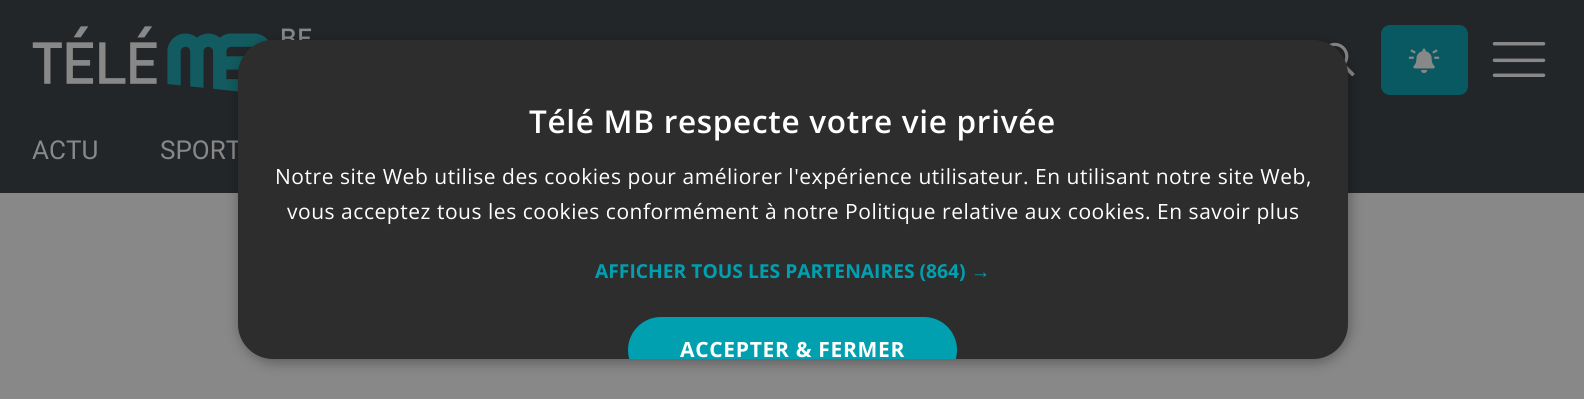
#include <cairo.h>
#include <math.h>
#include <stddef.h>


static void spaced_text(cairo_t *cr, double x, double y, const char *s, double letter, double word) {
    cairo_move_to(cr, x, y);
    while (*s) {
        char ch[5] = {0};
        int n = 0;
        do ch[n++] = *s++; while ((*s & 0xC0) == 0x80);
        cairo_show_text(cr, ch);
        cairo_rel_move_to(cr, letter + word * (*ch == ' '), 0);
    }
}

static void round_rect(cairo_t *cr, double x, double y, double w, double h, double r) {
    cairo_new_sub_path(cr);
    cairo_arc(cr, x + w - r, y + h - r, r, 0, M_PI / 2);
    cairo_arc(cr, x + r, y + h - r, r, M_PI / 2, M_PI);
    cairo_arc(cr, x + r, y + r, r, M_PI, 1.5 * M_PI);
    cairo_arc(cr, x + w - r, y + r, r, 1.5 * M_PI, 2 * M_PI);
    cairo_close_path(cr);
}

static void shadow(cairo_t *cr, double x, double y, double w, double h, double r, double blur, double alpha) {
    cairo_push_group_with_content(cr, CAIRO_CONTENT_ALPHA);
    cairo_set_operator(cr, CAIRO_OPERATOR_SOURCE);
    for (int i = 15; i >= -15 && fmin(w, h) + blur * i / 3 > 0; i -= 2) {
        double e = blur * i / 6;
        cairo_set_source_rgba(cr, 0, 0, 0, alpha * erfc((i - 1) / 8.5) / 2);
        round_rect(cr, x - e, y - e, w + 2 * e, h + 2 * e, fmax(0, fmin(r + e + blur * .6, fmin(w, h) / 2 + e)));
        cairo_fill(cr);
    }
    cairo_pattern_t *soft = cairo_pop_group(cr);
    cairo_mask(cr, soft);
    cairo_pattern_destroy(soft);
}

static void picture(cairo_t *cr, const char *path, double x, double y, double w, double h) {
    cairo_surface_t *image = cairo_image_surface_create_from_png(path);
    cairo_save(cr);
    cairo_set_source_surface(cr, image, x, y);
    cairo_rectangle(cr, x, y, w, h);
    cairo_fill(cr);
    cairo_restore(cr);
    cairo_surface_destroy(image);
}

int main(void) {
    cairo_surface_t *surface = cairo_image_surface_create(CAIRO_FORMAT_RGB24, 1584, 399);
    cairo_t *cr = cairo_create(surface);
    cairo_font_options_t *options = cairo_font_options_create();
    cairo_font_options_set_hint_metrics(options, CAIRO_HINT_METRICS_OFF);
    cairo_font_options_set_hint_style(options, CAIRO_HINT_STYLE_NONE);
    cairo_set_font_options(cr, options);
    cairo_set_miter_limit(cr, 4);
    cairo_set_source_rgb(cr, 0.533, 0.533, 0.533);
    cairo_paint(cr);
    cairo_set_source_rgb(cr, 0.137, 0.149, 0.161);
    cairo_rectangle(cr, 0, 0, 1584, 193);
    cairo_fill(cr);
    picture(cr, "img1.png", 32, 26, 280, 66);
    picture(cr, "img2.png", 1329, 42, 26, 35);
    cairo_set_source_rgb(cr, 0.035, 0.349, 0.38);
    round_rect(cr, 1381, 25, 87, 70, 9);
    cairo_fill(cr);
    picture(cr, "img3.png", 1408, 48, 32, 25);
    picture(cr, "img4.png", 1492, 42, 54, 35);
    cairo_select_font_face(cr, "Roboto", CAIRO_FONT_SLANT_NORMAL, CAIRO_FONT_WEIGHT_NORMAL);
    cairo_set_font_size(cr, 26);
    cairo_set_source_rgb(cr, 0.533, 0.533, 0.533);
    cairo_move_to(cr, 32, 159);
    cairo_show_text(cr, "ACTU");
    cairo_move_to(cr, 160, 159);
    cairo_show_text(cr, "SPORT");
    cairo_set_source_rgb(cr, 0, 0, 0);
    shadow(cr, 240, 44, 1109, 318, 35, 7, 0.35);
    cairo_set_source_rgb(cr, 0.176, 0.176, 0.176);
    round_rect(cr, 238, 40, 1110, 319, 35);
    cairo_fill(cr);
    cairo_select_font_face(cr, "Open Sans SemiBold", CAIRO_FONT_SLANT_NORMAL, CAIRO_FONT_WEIGHT_NORMAL);
    cairo_set_font_size(cr, 31.5);
    cairo_set_source_rgb(cr, 1, 1, 1);
    spaced_text(cr, 529, 133, "Télé MB respecte votre vie privée", 0.7, 0);
    cairo_select_font_face(cr, "Open Sans", CAIRO_FONT_SLANT_NORMAL, CAIRO_FONT_WEIGHT_NORMAL);
    cairo_set_font_size(cr, 21);
    spaced_text(cr, 275, 184, "Notre site Web utilise des cookies pour améliorer l'expérience utilisateur. En utilisant notre site Web,", 0.53, 0);
    spaced_text(cr, 287, 219, "vous acceptez tous les cookies conformément à notre Politique relative aux cookies. En savoir plus", 0.53, 0);
    cairo_select_font_face(cr, "Open Sans", CAIRO_FONT_SLANT_NORMAL, CAIRO_FONT_WEIGHT_BOLD);
    cairo_set_font_size(cr, 19.25);
    cairo_set_source_rgb(cr, 0, 0.627, 0.69);
    cairo_move_to(cr, 595, 278);
    cairo_show_text(cr, "AFFICHER TOUS LES PARTENAIRES (864)");
    cairo_select_font_face(cr, "Liberation Sans", CAIRO_FONT_SLANT_NORMAL, CAIRO_FONT_WEIGHT_BOLD);
    cairo_move_to(cr, 971, 278);
    cairo_show_text(cr, "→");
    cairo_save(cr);
    round_rect(cr, 238, 40, 1110, 319, 35);
    cairo_clip(cr);
    round_rect(cr, 628, 317, 329, 66, 33);
    cairo_fill(cr);
    cairo_restore(cr);
    cairo_select_font_face(cr, "Open Sans", CAIRO_FONT_SLANT_NORMAL, CAIRO_FONT_WEIGHT_BOLD);
    cairo_set_font_size(cr, 21);
    cairo_set_source_rgb(cr, 1, 1, 1);
    spaced_text(cr, 680, 357, "ACCEPTER & FERMER", 0.7, 0);
    cairo_surface_write_to_png(surface, "page.png");
    cairo_font_options_destroy(options);
    cairo_destroy(cr);
    cairo_surface_destroy(surface);
    return 0;
}
